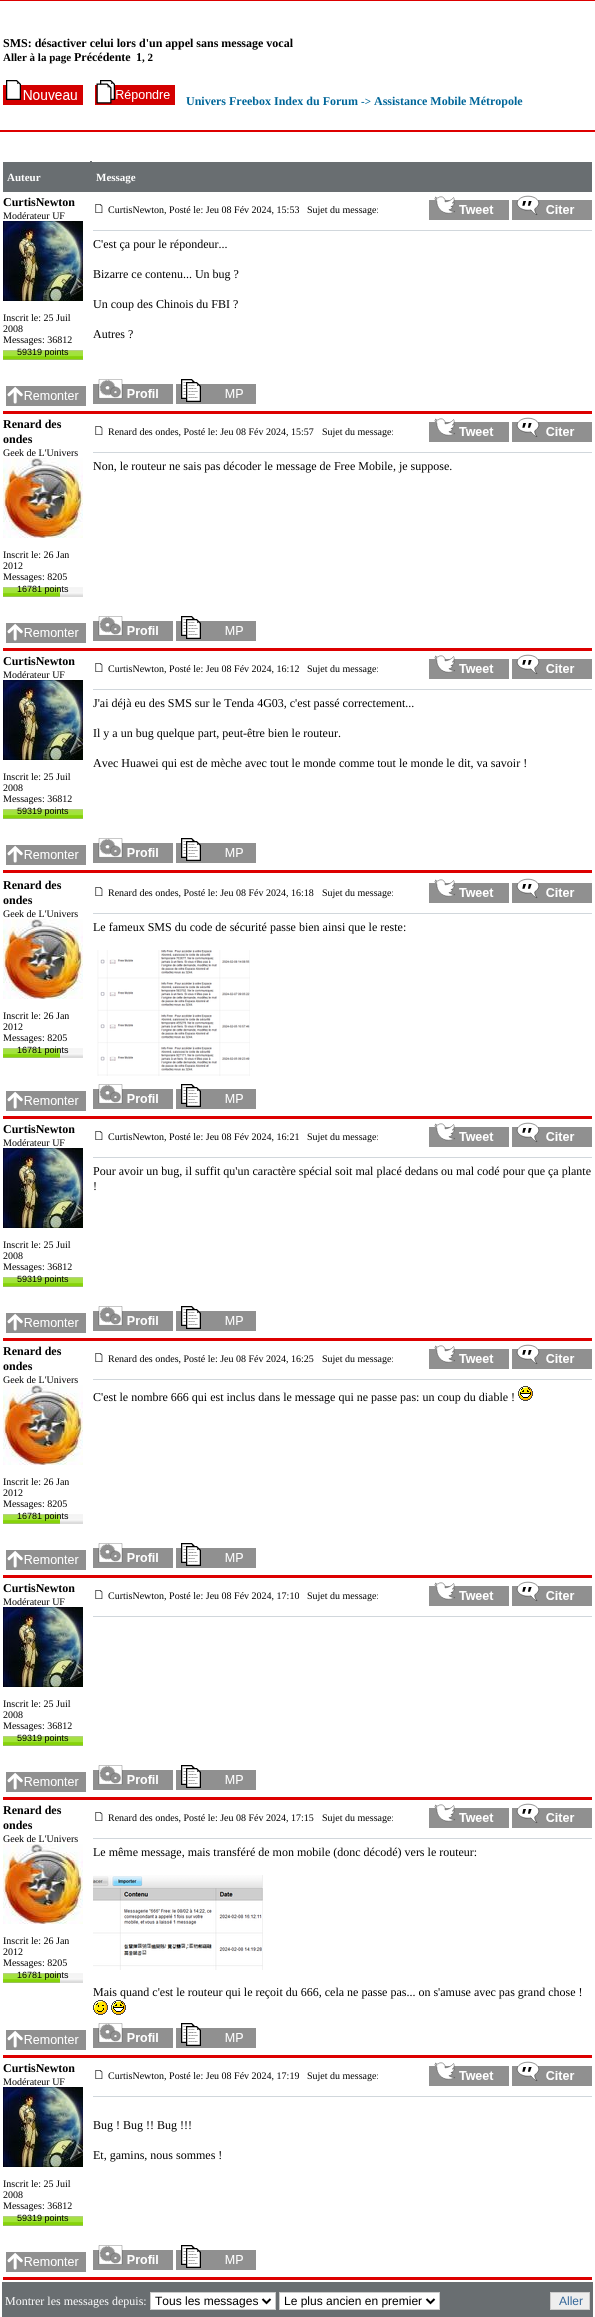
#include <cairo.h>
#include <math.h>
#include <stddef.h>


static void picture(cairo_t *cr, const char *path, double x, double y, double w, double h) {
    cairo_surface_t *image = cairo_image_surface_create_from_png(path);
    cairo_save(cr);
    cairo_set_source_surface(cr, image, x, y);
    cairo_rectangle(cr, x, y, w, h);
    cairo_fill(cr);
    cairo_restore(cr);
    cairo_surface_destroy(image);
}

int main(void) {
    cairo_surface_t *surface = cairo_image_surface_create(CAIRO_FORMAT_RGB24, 595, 2317);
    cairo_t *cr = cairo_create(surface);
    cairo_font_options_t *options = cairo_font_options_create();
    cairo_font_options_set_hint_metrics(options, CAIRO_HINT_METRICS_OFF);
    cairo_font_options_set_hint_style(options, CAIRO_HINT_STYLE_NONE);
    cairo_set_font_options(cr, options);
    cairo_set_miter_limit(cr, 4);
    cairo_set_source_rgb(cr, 1, 1, 1);
    cairo_paint(cr);
    cairo_set_source_rgb(cr, 0.867, 0, 0);
    cairo_rectangle(cr, 0, 0, 595, 1);
    cairo_fill(cr);
    cairo_select_font_face(cr, "Liberation Serif", CAIRO_FONT_SLANT_NORMAL, CAIRO_FONT_WEIGHT_BOLD);
    cairo_set_font_size(cr, 12);
    cairo_set_source_rgb(cr, 0, 0, 0);
    cairo_move_to(cr, 3, 47);
    cairo_show_text(cr, "SMS: désactiver celui lors d'un appel sans message vocal");
    cairo_set_font_size(cr, 11);
    cairo_move_to(cr, 3, 61);
    cairo_show_text(cr, "Aller à la page");
    cairo_set_font_size(cr, 12);
    cairo_move_to(cr, 74, 61);
    cairo_show_text(cr, "Précédente");
    cairo_move_to(cr, 136, 61);
    cairo_show_text(cr, "1");
    cairo_set_font_size(cr, 11);
    cairo_move_to(cr, 142, 61);
    cairo_show_text(cr, ", 2");
    picture(cr, "img1.png", 3, 80, 80, 25);
    picture(cr, "img2.png", 95, 80, 80, 25);
    cairo_set_font_size(cr, 12);
    cairo_set_source_rgb(cr, 0, 0.4, 0.6);
    cairo_move_to(cr, 186, 105);
    cairo_show_text(cr, "Univers Freebox Index du Forum");
    cairo_set_font_size(cr, 11);
    cairo_move_to(cr, 361, 105);
    cairo_show_text(cr, "->");
    cairo_set_font_size(cr, 12);
    cairo_move_to(cr, 374, 105);
    cairo_show_text(cr, "Assistance Mobile Métropole");
    cairo_set_source_rgb(cr, 0.867, 0, 0);
    cairo_rectangle(cr, 0, 130, 595, 2);
    cairo_fill(cr);
    cairo_set_source_rgb(cr, 0.412, 0.431, 0.443);
    cairo_rectangle(cr, 3, 161, 589, 31);
    cairo_fill(cr);
    cairo_set_source_rgb(cr, 1, 1, 1);
    cairo_rectangle(cr, 2, 161, 88, 1);
    cairo_fill(cr);
    cairo_set_font_size(cr, 11);
    cairo_move_to(cr, 7, 181);
    cairo_show_text(cr, "Auteur");
    cairo_rectangle(cr, 92, 161, 501, 1);
    cairo_fill(cr);
    cairo_move_to(cr, 96, 181);
    cairo_show_text(cr, "Message");
    cairo_set_font_size(cr, 12);
    cairo_set_source_rgb(cr, 0, 0, 0);
    cairo_move_to(cr, 3, 206);
    cairo_show_text(cr, "CurtisNewton");
    cairo_select_font_face(cr, "Liberation Serif", CAIRO_FONT_SLANT_NORMAL, CAIRO_FONT_WEIGHT_NORMAL);
    cairo_set_font_size(cr, 10);
    cairo_move_to(cr, 3, 219);
    cairo_show_text(cr, "Modérateur UF");
    picture(cr, "img3.png", 3, 221, 80, 80);
    cairo_move_to(cr, 3, 321);
    cairo_show_text(cr, "Inscrit le: 25 Juil");
    cairo_move_to(cr, 3, 332);
    cairo_show_text(cr, "2008");
    cairo_move_to(cr, 3, 343);
    cairo_show_text(cr, "Messages: 36812");
    picture(cr, "img4.png", 3, 350, 80, 10);
    cairo_select_font_face(cr, "Liberation Sans", CAIRO_FONT_SLANT_NORMAL, CAIRO_FONT_WEIGHT_NORMAL);
    cairo_set_font_size(cr, 9);
    cairo_move_to(cr, 17, 355);
    cairo_show_text(cr, "59319 points");
    picture(cr, "img5.png", 95, 204, 8, 9);
    cairo_select_font_face(cr, "Liberation Serif", CAIRO_FONT_SLANT_NORMAL, CAIRO_FONT_WEIGHT_NORMAL);
    cairo_set_font_size(cr, 10);
    cairo_move_to(cr, 108, 213);
    cairo_show_text(cr, "CurtisNewton, Posté le: Jeu 08 Fév 2024, 15:53");
    cairo_move_to(cr, 307, 213);
    cairo_show_text(cr, "Sujet du message:");
    picture(cr, "img6.png", 429, 196, 80, 24);
    picture(cr, "img7.png", 512, 195, 80, 25);
    cairo_set_source_rgb(cr, 0.82, 0.843, 0.863);
    cairo_rectangle(cr, 93, 230, 499, 1);
    cairo_fill(cr);
    cairo_set_font_size(cr, 12);
    cairo_set_source_rgb(cr, 0, 0, 0);
    cairo_move_to(cr, 93, 248);
    cairo_show_text(cr, "C'est ça pour le répondeur...");
    cairo_move_to(cr, 93, 278);
    cairo_show_text(cr, "Bizarre ce contenu... Un bug ?");
    cairo_move_to(cr, 93, 308);
    cairo_show_text(cr, "Un coup des Chinois du FBI ?");
    cairo_move_to(cr, 93, 338);
    cairo_show_text(cr, "Autres ?");
    picture(cr, "img8.png", 6, 386, 80, 20);
    picture(cr, "img9.png", 93, 379, 80, 25);
    picture(cr, "img10.png", 176, 379, 80, 25);
    cairo_set_source_rgb(cr, 0.867, 0, 0);
    cairo_rectangle(cr, 3, 411, 589, 3);
    cairo_fill(cr);
    cairo_select_font_face(cr, "Liberation Serif", CAIRO_FONT_SLANT_NORMAL, CAIRO_FONT_WEIGHT_BOLD);
    cairo_set_source_rgb(cr, 0, 0, 0);
    cairo_move_to(cr, 3, 428);
    cairo_show_text(cr, "Renard des");
    cairo_move_to(cr, 3, 443);
    cairo_show_text(cr, "ondes");
    cairo_select_font_face(cr, "Liberation Serif", CAIRO_FONT_SLANT_NORMAL, CAIRO_FONT_WEIGHT_NORMAL);
    cairo_set_font_size(cr, 10);
    cairo_move_to(cr, 3, 456);
    cairo_show_text(cr, "Geek de L'Univers");
    picture(cr, "img11.png", 3, 458, 80, 80);
    cairo_move_to(cr, 3, 558);
    cairo_show_text(cr, "Inscrit le: 26 Jan");
    cairo_move_to(cr, 3, 569);
    cairo_show_text(cr, "2012");
    cairo_move_to(cr, 3, 580);
    cairo_show_text(cr, "Messages: 8205");
    picture(cr, "img12.png", 60, 587, 23, 10);
    picture(cr, "img13.png", 3, 587, 57, 10);
    cairo_select_font_face(cr, "Liberation Sans", CAIRO_FONT_SLANT_NORMAL, CAIRO_FONT_WEIGHT_NORMAL);
    cairo_set_font_size(cr, 9);
    cairo_move_to(cr, 17, 592);
    cairo_show_text(cr, "16781 points");
    picture(cr, "img5.png", 95, 426, 8, 9);
    cairo_select_font_face(cr, "Liberation Serif", CAIRO_FONT_SLANT_NORMAL, CAIRO_FONT_WEIGHT_NORMAL);
    cairo_set_font_size(cr, 10);
    cairo_move_to(cr, 108, 435);
    cairo_show_text(cr, "Renard des ondes, Posté le: Jeu 08 Fév 2024, 15:57");
    cairo_move_to(cr, 322, 435);
    cairo_show_text(cr, "Sujet du message:");
    picture(cr, "img6.png", 429, 418, 80, 24);
    picture(cr, "img7.png", 512, 417, 80, 25);
    cairo_set_source_rgb(cr, 0.82, 0.843, 0.863);
    cairo_rectangle(cr, 93, 452, 499, 1);
    cairo_fill(cr);
    cairo_set_font_size(cr, 12);
    cairo_set_source_rgb(cr, 0, 0, 0);
    cairo_move_to(cr, 93, 470);
    cairo_show_text(cr, "Non, le routeur ne sais pas décoder le message de Free Mobile, je suppose.");
    picture(cr, "img8.png", 6, 623, 80, 20);
    picture(cr, "img9.png", 93, 616, 80, 25);
    picture(cr, "img10.png", 176, 616, 80, 25);
    cairo_set_source_rgb(cr, 0.867, 0, 0);
    cairo_rectangle(cr, 3, 648, 589, 3);
    cairo_fill(cr);
    cairo_select_font_face(cr, "Liberation Serif", CAIRO_FONT_SLANT_NORMAL, CAIRO_FONT_WEIGHT_BOLD);
    cairo_set_source_rgb(cr, 0, 0, 0);
    cairo_move_to(cr, 3, 665);
    cairo_show_text(cr, "CurtisNewton");
    cairo_select_font_face(cr, "Liberation Serif", CAIRO_FONT_SLANT_NORMAL, CAIRO_FONT_WEIGHT_NORMAL);
    cairo_set_font_size(cr, 10);
    cairo_move_to(cr, 3, 678);
    cairo_show_text(cr, "Modérateur UF");
    picture(cr, "img3.png", 3, 680, 80, 80);
    cairo_move_to(cr, 3, 780);
    cairo_show_text(cr, "Inscrit le: 25 Juil");
    cairo_move_to(cr, 3, 791);
    cairo_show_text(cr, "2008");
    cairo_move_to(cr, 3, 802);
    cairo_show_text(cr, "Messages: 36812");
    picture(cr, "img4.png", 3, 809, 80, 10);
    cairo_select_font_face(cr, "Liberation Sans", CAIRO_FONT_SLANT_NORMAL, CAIRO_FONT_WEIGHT_NORMAL);
    cairo_set_font_size(cr, 9);
    cairo_move_to(cr, 17, 814);
    cairo_show_text(cr, "59319 points");
    picture(cr, "img5.png", 95, 663, 8, 9);
    cairo_select_font_face(cr, "Liberation Serif", CAIRO_FONT_SLANT_NORMAL, CAIRO_FONT_WEIGHT_NORMAL);
    cairo_set_font_size(cr, 10);
    cairo_move_to(cr, 108, 672);
    cairo_show_text(cr, "CurtisNewton, Posté le: Jeu 08 Fév 2024, 16:12");
    cairo_move_to(cr, 307, 672);
    cairo_show_text(cr, "Sujet du message:");
    picture(cr, "img14.png", 429, 655, 80, 24);
    picture(cr, "img15.png", 512, 654, 80, 25);
    cairo_set_source_rgb(cr, 0.82, 0.843, 0.863);
    cairo_rectangle(cr, 93, 689, 499, 1);
    cairo_fill(cr);
    cairo_set_font_size(cr, 12);
    cairo_set_source_rgb(cr, 0, 0, 0);
    cairo_move_to(cr, 93, 707);
    cairo_show_text(cr, "J'ai déjà eu des SMS sur le Tenda 4G03, c'est passé correctement...");
    cairo_move_to(cr, 93, 737);
    cairo_show_text(cr, "Il y a un bug quelque part, peut-être bien le routeur.");
    cairo_move_to(cr, 93, 767);
    cairo_show_text(cr, "Avec Huawei qui est de mèche avec tout le monde comme tout le monde le dit, va savoir !");
    picture(cr, "img8.png", 6, 845, 80, 20);
    picture(cr, "img9.png", 93, 838, 80, 25);
    picture(cr, "img10.png", 176, 838, 80, 25);
    cairo_set_source_rgb(cr, 0.867, 0, 0);
    cairo_rectangle(cr, 3, 870, 589, 3);
    cairo_fill(cr);
    cairo_select_font_face(cr, "Liberation Serif", CAIRO_FONT_SLANT_NORMAL, CAIRO_FONT_WEIGHT_BOLD);
    cairo_set_source_rgb(cr, 0, 0, 0);
    cairo_move_to(cr, 3, 889);
    cairo_show_text(cr, "Renard des");
    cairo_move_to(cr, 3, 904);
    cairo_show_text(cr, "ondes");
    cairo_select_font_face(cr, "Liberation Serif", CAIRO_FONT_SLANT_NORMAL, CAIRO_FONT_WEIGHT_NORMAL);
    cairo_set_font_size(cr, 10);
    cairo_move_to(cr, 3, 917);
    cairo_show_text(cr, "Geek de L'Univers");
    picture(cr, "img11.png", 3, 919, 80, 80);
    cairo_move_to(cr, 3, 1019);
    cairo_show_text(cr, "Inscrit le: 26 Jan");
    cairo_move_to(cr, 3, 1030);
    cairo_show_text(cr, "2012");
    cairo_move_to(cr, 3, 1041);
    cairo_show_text(cr, "Messages: 8205");
    picture(cr, "img12.png", 60, 1048, 23, 10);
    picture(cr, "img13.png", 3, 1048, 57, 10);
    cairo_select_font_face(cr, "Liberation Sans", CAIRO_FONT_SLANT_NORMAL, CAIRO_FONT_WEIGHT_NORMAL);
    cairo_set_font_size(cr, 9);
    cairo_move_to(cr, 17, 1053);
    cairo_show_text(cr, "16781 points");
    picture(cr, "img5.png", 95, 887, 8, 9);
    cairo_select_font_face(cr, "Liberation Serif", CAIRO_FONT_SLANT_NORMAL, CAIRO_FONT_WEIGHT_NORMAL);
    cairo_set_font_size(cr, 10);
    cairo_move_to(cr, 108, 896);
    cairo_show_text(cr, "Renard des ondes, Posté le: Jeu 08 Fév 2024, 16:18");
    cairo_move_to(cr, 322, 896);
    cairo_show_text(cr, "Sujet du message:");
    picture(cr, "img6.png", 429, 879, 80, 24);
    picture(cr, "img7.png", 512, 878, 80, 25);
    cairo_set_source_rgb(cr, 0.82, 0.843, 0.863);
    cairo_rectangle(cr, 93, 913, 499, 1);
    cairo_fill(cr);
    cairo_set_font_size(cr, 12);
    cairo_set_source_rgb(cr, 0, 0, 0);
    cairo_move_to(cr, 93, 931);
    cairo_show_text(cr, "Le fameux SMS du code de sécurité passe bien ainsi que le reste:");
    picture(cr, "img16.png", 97, 950, 153, 126);
    picture(cr, "img8.png", 6, 1091, 80, 20);
    picture(cr, "img9.png", 93, 1084, 80, 25);
    picture(cr, "img10.png", 176, 1084, 80, 25);
    cairo_set_source_rgb(cr, 0.867, 0, 0);
    cairo_rectangle(cr, 3, 1116, 589, 3);
    cairo_fill(cr);
    cairo_select_font_face(cr, "Liberation Serif", CAIRO_FONT_SLANT_NORMAL, CAIRO_FONT_WEIGHT_BOLD);
    cairo_set_source_rgb(cr, 0, 0, 0);
    cairo_move_to(cr, 3, 1133);
    cairo_show_text(cr, "CurtisNewton");
    cairo_select_font_face(cr, "Liberation Serif", CAIRO_FONT_SLANT_NORMAL, CAIRO_FONT_WEIGHT_NORMAL);
    cairo_set_font_size(cr, 10);
    cairo_move_to(cr, 3, 1146);
    cairo_show_text(cr, "Modérateur UF");
    picture(cr, "img3.png", 3, 1148, 80, 80);
    cairo_move_to(cr, 3, 1248);
    cairo_show_text(cr, "Inscrit le: 25 Juil");
    cairo_move_to(cr, 3, 1259);
    cairo_show_text(cr, "2008");
    cairo_move_to(cr, 3, 1270);
    cairo_show_text(cr, "Messages: 36812");
    picture(cr, "img4.png", 3, 1277, 80, 10);
    cairo_select_font_face(cr, "Liberation Sans", CAIRO_FONT_SLANT_NORMAL, CAIRO_FONT_WEIGHT_NORMAL);
    cairo_set_font_size(cr, 9);
    cairo_move_to(cr, 17, 1282);
    cairo_show_text(cr, "59319 points");
    picture(cr, "img5.png", 95, 1131, 8, 9);
    cairo_select_font_face(cr, "Liberation Serif", CAIRO_FONT_SLANT_NORMAL, CAIRO_FONT_WEIGHT_NORMAL);
    cairo_set_font_size(cr, 10);
    cairo_move_to(cr, 108, 1140);
    cairo_show_text(cr, "CurtisNewton, Posté le: Jeu 08 Fév 2024, 16:21");
    cairo_move_to(cr, 307, 1140);
    cairo_show_text(cr, "Sujet du message:");
    picture(cr, "img6.png", 429, 1123, 80, 24);
    picture(cr, "img7.png", 512, 1122, 80, 25);
    cairo_set_source_rgb(cr, 0.82, 0.843, 0.863);
    cairo_rectangle(cr, 93, 1157, 499, 1);
    cairo_fill(cr);
    cairo_set_font_size(cr, 12);
    cairo_set_source_rgb(cr, 0, 0, 0);
    cairo_move_to(cr, 93, 1175);
    cairo_show_text(cr, "Pour avoir un bug, il suffit qu'un caractère spécial soit mal placé dedans ou mal codé pour que ça plante");
    cairo_move_to(cr, 93, 1190);
    cairo_show_text(cr, "!");
    picture(cr, "img8.png", 6, 1313, 80, 20);
    picture(cr, "img9.png", 93, 1306, 80, 25);
    picture(cr, "img10.png", 176, 1306, 80, 25);
    cairo_set_source_rgb(cr, 0.867, 0, 0);
    cairo_rectangle(cr, 3, 1338, 589, 3);
    cairo_fill(cr);
    cairo_select_font_face(cr, "Liberation Serif", CAIRO_FONT_SLANT_NORMAL, CAIRO_FONT_WEIGHT_BOLD);
    cairo_set_source_rgb(cr, 0, 0, 0);
    cairo_move_to(cr, 3, 1355);
    cairo_show_text(cr, "Renard des");
    cairo_move_to(cr, 3, 1370);
    cairo_show_text(cr, "ondes");
    cairo_select_font_face(cr, "Liberation Serif", CAIRO_FONT_SLANT_NORMAL, CAIRO_FONT_WEIGHT_NORMAL);
    cairo_set_font_size(cr, 10);
    cairo_move_to(cr, 3, 1383);
    cairo_show_text(cr, "Geek de L'Univers");
    picture(cr, "img11.png", 3, 1385, 80, 80);
    cairo_move_to(cr, 3, 1485);
    cairo_show_text(cr, "Inscrit le: 26 Jan");
    cairo_move_to(cr, 3, 1496);
    cairo_show_text(cr, "2012");
    cairo_move_to(cr, 3, 1507);
    cairo_show_text(cr, "Messages: 8205");
    picture(cr, "img12.png", 60, 1514, 23, 10);
    picture(cr, "img13.png", 3, 1514, 57, 10);
    cairo_select_font_face(cr, "Liberation Sans", CAIRO_FONT_SLANT_NORMAL, CAIRO_FONT_WEIGHT_NORMAL);
    cairo_set_font_size(cr, 9);
    cairo_move_to(cr, 17, 1519);
    cairo_show_text(cr, "16781 points");
    picture(cr, "img5.png", 95, 1353, 8, 9);
    cairo_select_font_face(cr, "Liberation Serif", CAIRO_FONT_SLANT_NORMAL, CAIRO_FONT_WEIGHT_NORMAL);
    cairo_set_font_size(cr, 10);
    cairo_move_to(cr, 108, 1362);
    cairo_show_text(cr, "Renard des ondes, Posté le: Jeu 08 Fév 2024, 16:25");
    cairo_move_to(cr, 322, 1362);
    cairo_show_text(cr, "Sujet du message:");
    picture(cr, "img6.png", 429, 1345, 80, 24);
    picture(cr, "img7.png", 512, 1344, 80, 25);
    cairo_set_source_rgb(cr, 0.82, 0.843, 0.863);
    cairo_rectangle(cr, 93, 1379, 499, 1);
    cairo_fill(cr);
    cairo_set_font_size(cr, 12);
    cairo_set_source_rgb(cr, 0, 0, 0);
    cairo_move_to(cr, 93, 1401);
    cairo_show_text(cr, "C'est le nombre 666 qui est inclus dans le message qui ne passe pas: un coup du diable !");
    picture(cr, "img17.png", 518, 1386, 15, 15);
    picture(cr, "img8.png", 6, 1550, 80, 20);
    picture(cr, "img9.png", 93, 1543, 80, 25);
    picture(cr, "img10.png", 176, 1543, 80, 25);
    cairo_set_source_rgb(cr, 0.867, 0, 0);
    cairo_rectangle(cr, 3, 1575, 589, 3);
    cairo_fill(cr);
    cairo_select_font_face(cr, "Liberation Serif", CAIRO_FONT_SLANT_NORMAL, CAIRO_FONT_WEIGHT_BOLD);
    cairo_set_source_rgb(cr, 0, 0, 0);
    cairo_move_to(cr, 3, 1592);
    cairo_show_text(cr, "CurtisNewton");
    cairo_select_font_face(cr, "Liberation Serif", CAIRO_FONT_SLANT_NORMAL, CAIRO_FONT_WEIGHT_NORMAL);
    cairo_set_font_size(cr, 10);
    cairo_move_to(cr, 3, 1605);
    cairo_show_text(cr, "Modérateur UF");
    picture(cr, "img3.png", 3, 1607, 80, 80);
    cairo_move_to(cr, 3, 1707);
    cairo_show_text(cr, "Inscrit le: 25 Juil");
    cairo_move_to(cr, 3, 1718);
    cairo_show_text(cr, "2008");
    cairo_move_to(cr, 3, 1729);
    cairo_show_text(cr, "Messages: 36812");
    picture(cr, "img4.png", 3, 1736, 80, 10);
    cairo_select_font_face(cr, "Liberation Sans", CAIRO_FONT_SLANT_NORMAL, CAIRO_FONT_WEIGHT_NORMAL);
    cairo_set_font_size(cr, 9);
    cairo_move_to(cr, 17, 1741);
    cairo_show_text(cr, "59319 points");
    picture(cr, "img5.png", 95, 1590, 8, 9);
    cairo_select_font_face(cr, "Liberation Serif", CAIRO_FONT_SLANT_NORMAL, CAIRO_FONT_WEIGHT_NORMAL);
    cairo_set_font_size(cr, 10);
    cairo_move_to(cr, 108, 1599);
    cairo_show_text(cr, "CurtisNewton, Posté le: Jeu 08 Fév 2024, 17:10");
    cairo_move_to(cr, 307, 1599);
    cairo_show_text(cr, "Sujet du message:");
    picture(cr, "img6.png", 429, 1582, 80, 24);
    picture(cr, "img7.png", 512, 1581, 80, 25);
    cairo_set_source_rgb(cr, 0.82, 0.843, 0.863);
    cairo_rectangle(cr, 93, 1616, 499, 1);
    cairo_fill(cr);
    picture(cr, "img8.png", 6, 1772, 80, 20);
    picture(cr, "img9.png", 93, 1765, 80, 25);
    picture(cr, "img10.png", 176, 1765, 80, 25);
    cairo_set_source_rgb(cr, 0.867, 0, 0);
    cairo_rectangle(cr, 3, 1797, 589, 3);
    cairo_fill(cr);
    cairo_select_font_face(cr, "Liberation Serif", CAIRO_FONT_SLANT_NORMAL, CAIRO_FONT_WEIGHT_BOLD);
    cairo_set_font_size(cr, 12);
    cairo_set_source_rgb(cr, 0, 0, 0);
    cairo_move_to(cr, 3, 1814);
    cairo_show_text(cr, "Renard des");
    cairo_move_to(cr, 3, 1829);
    cairo_show_text(cr, "ondes");
    cairo_select_font_face(cr, "Liberation Serif", CAIRO_FONT_SLANT_NORMAL, CAIRO_FONT_WEIGHT_NORMAL);
    cairo_set_font_size(cr, 10);
    cairo_move_to(cr, 3, 1842);
    cairo_show_text(cr, "Geek de L'Univers");
    picture(cr, "img11.png", 3, 1844, 80, 80);
    cairo_move_to(cr, 3, 1944);
    cairo_show_text(cr, "Inscrit le: 26 Jan");
    cairo_move_to(cr, 3, 1955);
    cairo_show_text(cr, "2012");
    cairo_move_to(cr, 3, 1966);
    cairo_show_text(cr, "Messages: 8205");
    picture(cr, "img12.png", 60, 1973, 23, 10);
    picture(cr, "img13.png", 3, 1973, 57, 10);
    cairo_select_font_face(cr, "Liberation Sans", CAIRO_FONT_SLANT_NORMAL, CAIRO_FONT_WEIGHT_NORMAL);
    cairo_set_font_size(cr, 9);
    cairo_move_to(cr, 17, 1978);
    cairo_show_text(cr, "16781 points");
    picture(cr, "img5.png", 95, 1812, 8, 9);
    cairo_select_font_face(cr, "Liberation Serif", CAIRO_FONT_SLANT_NORMAL, CAIRO_FONT_WEIGHT_NORMAL);
    cairo_set_font_size(cr, 10);
    cairo_move_to(cr, 108, 1821);
    cairo_show_text(cr, "Renard des ondes, Posté le: Jeu 08 Fév 2024, 17:15");
    cairo_move_to(cr, 322, 1821);
    cairo_show_text(cr, "Sujet du message:");
    picture(cr, "img6.png", 429, 1804, 80, 24);
    picture(cr, "img7.png", 512, 1803, 80, 25);
    cairo_set_source_rgb(cr, 0.82, 0.843, 0.863);
    cairo_rectangle(cr, 93, 1838, 499, 1);
    cairo_fill(cr);
    cairo_set_font_size(cr, 12);
    cairo_set_source_rgb(cr, 0, 0, 0);
    cairo_move_to(cr, 93, 1856);
    cairo_show_text(cr, "Le même message, mais transféré de mon mobile (donc décodé) vers le routeur:");
    picture(cr, "img18.png", 93, 1875, 170, 95);
    cairo_move_to(cr, 93, 1996);
    cairo_show_text(cr, "Mais quand c'est le routeur qui le reçoit du 666, cela ne passe pas... on s'amuse avec pas grand chose !");
    picture(cr, "img19.png", 93, 2000, 15, 15);
    picture(cr, "img17.png", 111, 2000, 15, 15);
    picture(cr, "img8.png", 6, 2030, 80, 20);
    picture(cr, "img9.png", 93, 2023, 80, 25);
    picture(cr, "img10.png", 176, 2023, 80, 25);
    cairo_set_source_rgb(cr, 0.867, 0, 0);
    cairo_rectangle(cr, 3, 2055, 589, 3);
    cairo_fill(cr);
    cairo_select_font_face(cr, "Liberation Serif", CAIRO_FONT_SLANT_NORMAL, CAIRO_FONT_WEIGHT_BOLD);
    cairo_set_source_rgb(cr, 0, 0, 0);
    cairo_move_to(cr, 3, 2072);
    cairo_show_text(cr, "CurtisNewton");
    cairo_select_font_face(cr, "Liberation Serif", CAIRO_FONT_SLANT_NORMAL, CAIRO_FONT_WEIGHT_NORMAL);
    cairo_set_font_size(cr, 10);
    cairo_move_to(cr, 3, 2085);
    cairo_show_text(cr, "Modérateur UF");
    picture(cr, "img3.png", 3, 2087, 80, 80);
    cairo_move_to(cr, 3, 2187);
    cairo_show_text(cr, "Inscrit le: 25 Juil");
    cairo_move_to(cr, 3, 2198);
    cairo_show_text(cr, "2008");
    cairo_move_to(cr, 3, 2209);
    cairo_show_text(cr, "Messages: 36812");
    picture(cr, "img4.png", 3, 2216, 80, 10);
    cairo_select_font_face(cr, "Liberation Sans", CAIRO_FONT_SLANT_NORMAL, CAIRO_FONT_WEIGHT_NORMAL);
    cairo_set_font_size(cr, 9);
    cairo_move_to(cr, 17, 2221);
    cairo_show_text(cr, "59319 points");
    picture(cr, "img5.png", 95, 2070, 8, 9);
    cairo_select_font_face(cr, "Liberation Serif", CAIRO_FONT_SLANT_NORMAL, CAIRO_FONT_WEIGHT_NORMAL);
    cairo_set_font_size(cr, 10);
    cairo_move_to(cr, 108, 2079);
    cairo_show_text(cr, "CurtisNewton, Posté le: Jeu 08 Fév 2024, 17:19");
    cairo_move_to(cr, 307, 2079);
    cairo_show_text(cr, "Sujet du message:");
    picture(cr, "img6.png", 429, 2062, 80, 24);
    picture(cr, "img7.png", 512, 2061, 80, 25);
    cairo_set_source_rgb(cr, 0.82, 0.843, 0.863);
    cairo_rectangle(cr, 93, 2096, 499, 1);
    cairo_fill(cr);
    cairo_set_font_size(cr, 12);
    cairo_set_source_rgb(cr, 0, 0, 0);
    cairo_move_to(cr, 93, 2129);
    cairo_show_text(cr, "Bug ! Bug !! Bug !!!");
    cairo_move_to(cr, 93, 2159);
    cairo_show_text(cr, "Et, gamins, nous sommes !");
    picture(cr, "img8.png", 6, 2252, 80, 20);
    picture(cr, "img9.png", 93, 2245, 80, 25);
    picture(cr, "img10.png", 176, 2245, 80, 25);
    cairo_set_source_rgb(cr, 0.867, 0, 0);
    cairo_rectangle(cr, 3, 2277, 589, 3);
    cairo_fill(cr);
    cairo_set_source_rgb(cr, 0.412, 0.431, 0.443);
    cairo_rectangle(cr, 2, 2282, 591, 35);
    cairo_fill(cr);
    cairo_set_source_rgb(cr, 1, 1, 1);
    cairo_move_to(cr, 5, 2305);
    cairo_show_text(cr, "Montrer les messages depuis:");
    cairo_rectangle(cr, 150.5, 2292.5, 125, 17);
    cairo_fill_preserve(cr);
    cairo_set_source_rgb(cr, 0.8, 0.8, 0.8);
    cairo_set_line_width(cr, 1);
    cairo_stroke(cr);
    cairo_new_path(cr);
    cairo_move_to(cr, 262.5, 2299);
    cairo_line_to(cr, 266.5, 2303);
    cairo_line_to(cr, 270.5, 2299);
    cairo_set_source_rgb(cr, 0, 0, 0);
    cairo_set_line_width(cr, 2);
    cairo_stroke(cr);
    cairo_select_font_face(cr, "Liberation Sans", CAIRO_FONT_SLANT_NORMAL, CAIRO_FONT_WEIGHT_NORMAL);
    cairo_move_to(cr, 155, 2305);
    cairo_show_text(cr, "Tous les messages");
    cairo_set_source_rgb(cr, 1, 1, 1);
    cairo_rectangle(cr, 279.5, 2292.5, 160, 17);
    cairo_fill_preserve(cr);
    cairo_set_source_rgb(cr, 0.8, 0.8, 0.8);
    cairo_set_line_width(cr, 1);
    cairo_stroke(cr);
    cairo_new_path(cr);
    cairo_move_to(cr, 426.5, 2299);
    cairo_line_to(cr, 430.5, 2303);
    cairo_line_to(cr, 434.5, 2299);
    cairo_set_source_rgb(cr, 0, 0, 0);
    cairo_set_line_width(cr, 2);
    cairo_stroke(cr);
    cairo_move_to(cr, 284, 2305);
    cairo_show_text(cr, "Le plus ancien en premier");
    cairo_set_source_rgb(cr, 0.933, 0.933, 0.933);
    cairo_rectangle(cr, 550.5, 2292.5, 39, 17);
    cairo_fill_preserve(cr);
    cairo_set_source_rgb(cr, 0.8, 0.8, 0.8);
    cairo_set_line_width(cr, 1);
    cairo_stroke(cr);
    cairo_set_source_rgb(cr, 0.2, 0.4, 0.6);
    cairo_move_to(cr, 559, 2305);
    cairo_show_text(cr, "Aller");
    cairo_surface_write_to_png(surface, "page.png");
    cairo_font_options_destroy(options);
    cairo_destroy(cr);
    cairo_surface_destroy(surface);
    return 0;
}
